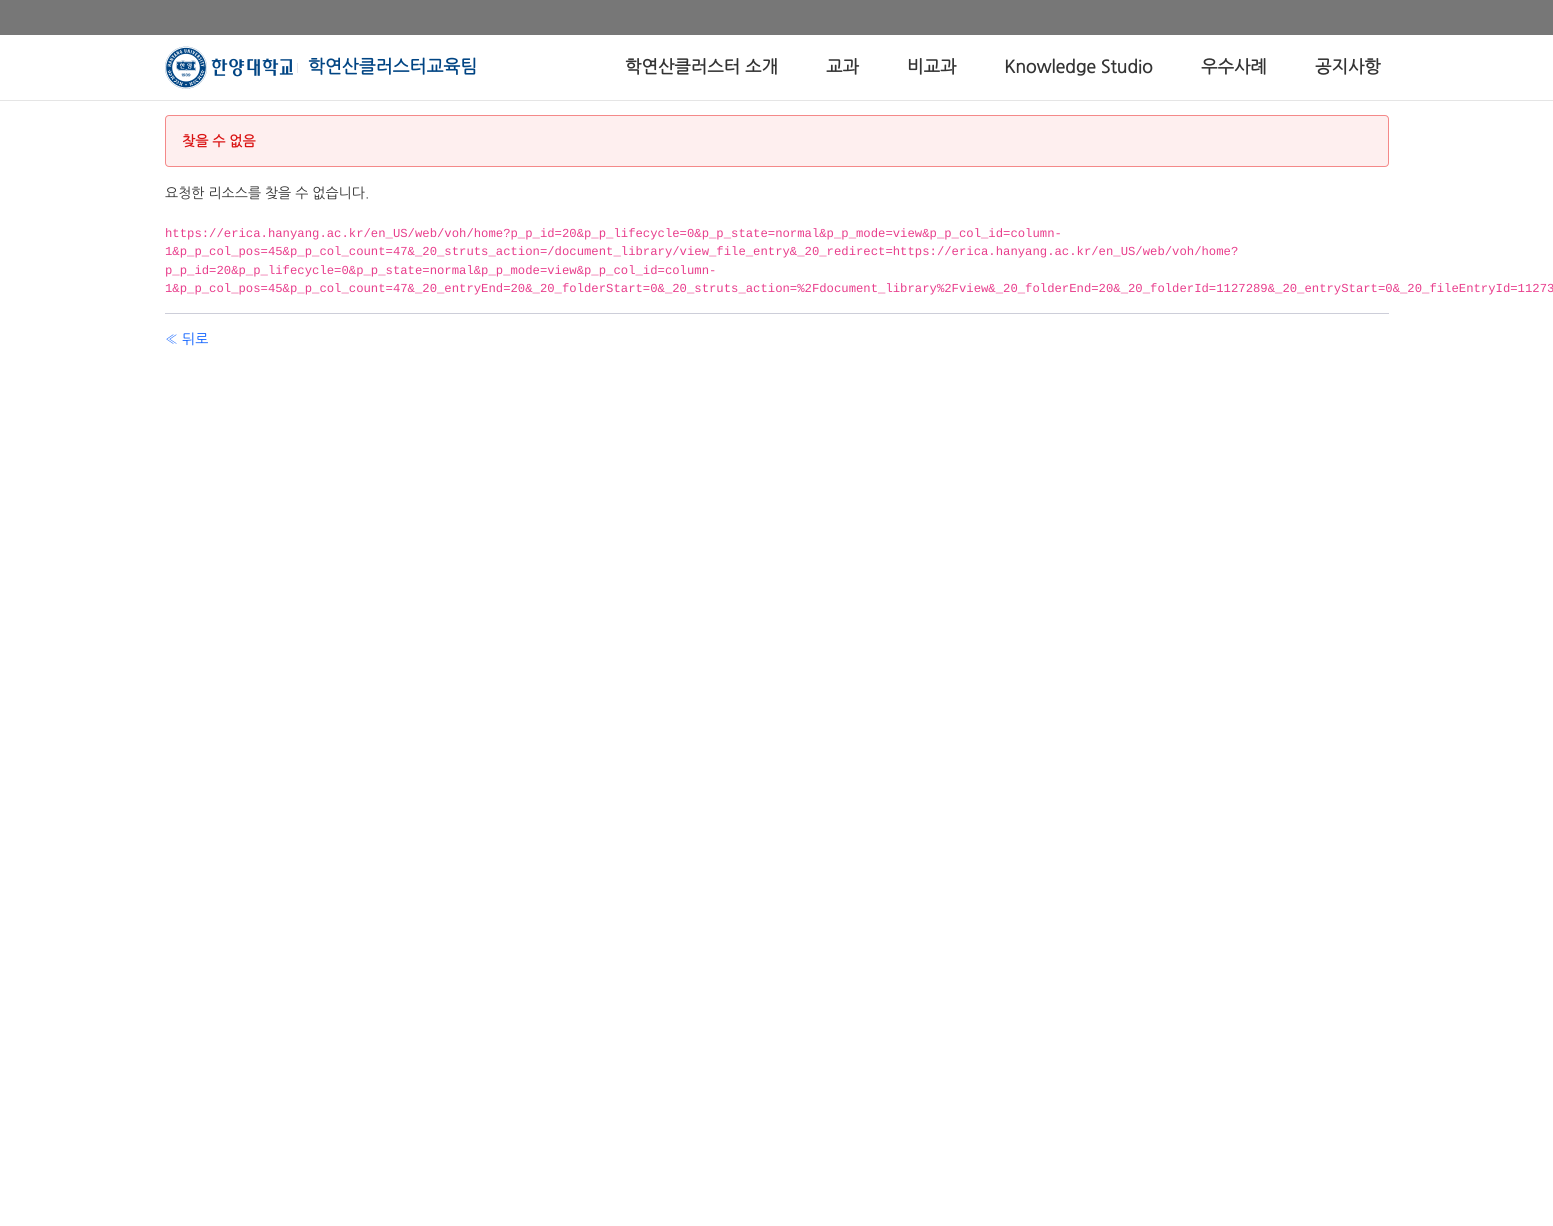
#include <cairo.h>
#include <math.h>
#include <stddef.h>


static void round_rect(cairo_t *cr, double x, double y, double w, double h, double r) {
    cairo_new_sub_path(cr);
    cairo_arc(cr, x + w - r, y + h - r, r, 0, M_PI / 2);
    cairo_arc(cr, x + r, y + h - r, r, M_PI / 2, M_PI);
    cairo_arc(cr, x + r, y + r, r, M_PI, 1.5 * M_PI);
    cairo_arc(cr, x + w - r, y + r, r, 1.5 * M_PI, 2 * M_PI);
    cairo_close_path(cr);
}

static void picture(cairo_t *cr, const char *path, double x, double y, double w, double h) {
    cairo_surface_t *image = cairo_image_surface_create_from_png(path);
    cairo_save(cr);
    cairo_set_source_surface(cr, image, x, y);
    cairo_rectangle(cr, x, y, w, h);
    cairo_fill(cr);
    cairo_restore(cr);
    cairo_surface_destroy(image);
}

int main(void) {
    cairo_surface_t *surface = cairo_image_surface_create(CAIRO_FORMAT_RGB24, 1553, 1226);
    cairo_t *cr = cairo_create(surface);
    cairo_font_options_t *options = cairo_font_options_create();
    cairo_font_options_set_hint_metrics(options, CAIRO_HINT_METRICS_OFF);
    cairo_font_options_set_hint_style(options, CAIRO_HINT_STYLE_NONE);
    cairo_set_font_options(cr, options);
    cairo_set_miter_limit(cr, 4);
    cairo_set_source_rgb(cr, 1, 1, 1);
    cairo_paint(cr);
    cairo_set_source_rgb(cr, 0.467, 0.467, 0.467);
    cairo_rectangle(cr, 0, 0, 1553, 35);
    cairo_fill(cr);
    cairo_set_source_rgb(cr, 0.898, 0.898, 0.898);
    cairo_rectangle(cr, 0, 100, 1553, 1);
    cairo_fill(cr);
    picture(cr, "img1.png", 165, 46, 128, 43);
    cairo_set_source_rgb(cr, 0.906, 0.906, 0.929);
    cairo_rectangle(cr, 297, 63, 1, 10);
    cairo_fill(cr);
    cairo_select_font_face(cr, "NanumGothic", CAIRO_FONT_SLANT_NORMAL, CAIRO_FONT_WEIGHT_BOLD);
    cairo_set_font_size(cr, 18);
    cairo_set_source_rgb(cr, 0, 0.267, 0.514);
    cairo_move_to(cr, 308, 73);
    cairo_show_text(cr, "학연산클러스터교육팀");
    cairo_set_font_size(cr, 17.5);
    cairo_set_source_rgb(cr, 0.2, 0.2, 0.2);
    cairo_move_to(cr, 625, 73);
    cairo_show_text(cr, "학연산클러스터 소개");
    cairo_move_to(cr, 826, 73);
    cairo_show_text(cr, "교과");
    cairo_move_to(cr, 907, 73);
    cairo_show_text(cr, "비교과");
    cairo_move_to(cr, 1004, 73);
    cairo_show_text(cr, "Knowledge Studio");
    cairo_move_to(cr, 1201, 73);
    cairo_show_text(cr, "우수사례");
    cairo_move_to(cr, 1315, 73);
    cairo_show_text(cr, "공지사항");
    cairo_set_source_rgb(cr, 0.996, 0.937, 0.937);
    round_rect(cr, 165.5, 115.5, 1223, 51, 3.5);
    cairo_fill_preserve(cr);
    cairo_set_source_rgb(cr, 0.957, 0.537, 0.537);
    cairo_set_line_width(cr, 1);
    cairo_stroke(cr);
    cairo_set_font_size(cr, 14);
    cairo_set_source_rgb(cr, 0.855, 0.078, 0.078);
    cairo_move_to(cr, 182, 146);
    cairo_show_text(cr, "찾을 수 없음");
    cairo_select_font_face(cr, "NanumGothic", CAIRO_FONT_SLANT_NORMAL, CAIRO_FONT_WEIGHT_NORMAL);
    cairo_set_source_rgb(cr, 0.2, 0.2, 0.2);
    cairo_move_to(cr, 165, 198);
    cairo_show_text(cr, "요청한 리소스를 찾을 수 없습니다.");
    cairo_select_font_face(cr, "Liberation Mono", CAIRO_FONT_SLANT_NORMAL, CAIRO_FONT_WEIGHT_NORMAL);
    cairo_set_font_size(cr, 12.25);
    cairo_set_source_rgb(cr, 0.91, 0.243, 0.549);
    cairo_move_to(cr, 165, 237);
    cairo_show_text(cr, "https://erica.hanyang.ac.kr/en_US/web/voh/home?p_p_id=20&p_p_lifecycle=0&p_p_state=normal&p_p_mode=view&p_p_col_id=column-");
    cairo_move_to(cr, 165, 255);
    cairo_show_text(cr, "1&p_p_col_pos=45&p_p_col_count=47&_20_struts_action=/document_library/view_file_entry&_20_redirect=https://erica.hanyang.ac.kr/en_US/web/voh/home?");
    cairo_move_to(cr, 165, 274);
    cairo_show_text(cr, "p_p_id=20&p_p_lifecycle=0&p_p_state=normal&p_p_mode=view&p_p_col_id=column-");
    cairo_move_to(cr, 165, 292);
    cairo_show_text(cr, "1&p_p_col_pos=45&p_p_col_count=47&_20_entryEnd=20&_20_folderStart=0&_20_struts_action=%2Fdocument_library%2Fview&_20_folderEnd=20&_20_folderId=1127289&_20_entryStart=0&_20_fileEntryId=11273");
    cairo_set_source_rgb(cr, 0.804, 0.808, 0.851);
    cairo_rectangle(cr, 165, 313, 1224, 1);
    cairo_fill(cr);
    cairo_select_font_face(cr, "NanumGothic", CAIRO_FONT_SLANT_NORMAL, CAIRO_FONT_WEIGHT_NORMAL);
    cairo_set_font_size(cr, 14);
    cairo_set_source_rgb(cr, 0.043, 0.373, 1);
    cairo_move_to(cr, 165, 344);
    cairo_show_text(cr, "« 뒤로");
    cairo_surface_write_to_png(surface, "page.png");
    cairo_font_options_destroy(options);
    cairo_destroy(cr);
    cairo_surface_destroy(surface);
    return 0;
}
